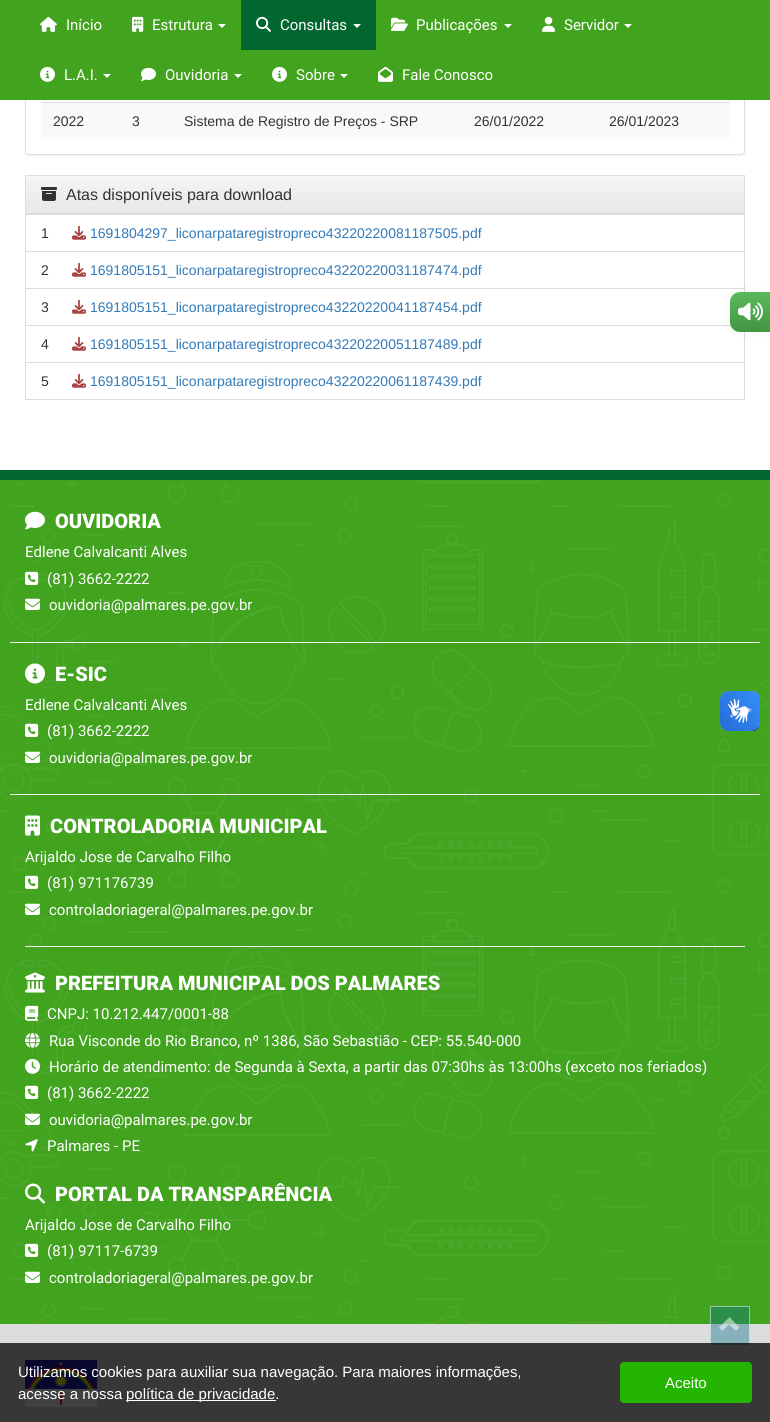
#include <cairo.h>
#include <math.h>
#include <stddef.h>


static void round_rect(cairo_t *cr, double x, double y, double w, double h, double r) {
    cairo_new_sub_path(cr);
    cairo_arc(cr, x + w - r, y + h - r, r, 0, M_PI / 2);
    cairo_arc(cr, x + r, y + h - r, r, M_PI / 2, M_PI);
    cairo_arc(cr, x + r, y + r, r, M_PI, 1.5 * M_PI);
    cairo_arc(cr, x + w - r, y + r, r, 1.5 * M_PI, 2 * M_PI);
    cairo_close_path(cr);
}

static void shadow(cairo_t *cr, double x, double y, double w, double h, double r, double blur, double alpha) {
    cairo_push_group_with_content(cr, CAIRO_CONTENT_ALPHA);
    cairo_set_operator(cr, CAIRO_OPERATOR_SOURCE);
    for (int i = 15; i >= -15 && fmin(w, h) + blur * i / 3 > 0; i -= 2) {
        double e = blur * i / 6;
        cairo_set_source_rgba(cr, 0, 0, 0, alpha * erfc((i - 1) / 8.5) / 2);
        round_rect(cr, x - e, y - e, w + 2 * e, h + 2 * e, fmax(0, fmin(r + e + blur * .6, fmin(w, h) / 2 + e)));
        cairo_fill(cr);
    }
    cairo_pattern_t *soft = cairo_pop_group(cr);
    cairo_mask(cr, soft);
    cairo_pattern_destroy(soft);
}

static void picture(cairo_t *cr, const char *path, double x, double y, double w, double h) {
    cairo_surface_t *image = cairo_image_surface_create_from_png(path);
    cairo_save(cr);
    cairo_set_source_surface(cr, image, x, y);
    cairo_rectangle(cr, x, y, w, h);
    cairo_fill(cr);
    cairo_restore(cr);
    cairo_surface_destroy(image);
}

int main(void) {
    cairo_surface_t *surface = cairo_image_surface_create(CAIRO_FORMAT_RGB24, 770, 1422);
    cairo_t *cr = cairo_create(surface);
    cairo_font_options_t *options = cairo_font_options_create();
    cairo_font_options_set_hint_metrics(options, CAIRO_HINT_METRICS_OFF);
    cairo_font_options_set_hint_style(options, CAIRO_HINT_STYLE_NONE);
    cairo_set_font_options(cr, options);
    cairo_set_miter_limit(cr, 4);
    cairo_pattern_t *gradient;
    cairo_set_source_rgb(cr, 1, 1, 1);
    cairo_paint(cr);
    cairo_set_source_rgb(cr, 0, 0, 0);
    shadow(cr, 25, -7, 720, 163, 4, 1, 0.05);
    cairo_set_source_rgb(cr, 1, 1, 1);
    round_rect(cr, 25.5, -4.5, 719, 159, 3.5);
    cairo_fill_preserve(cr);
    cairo_set_source_rgb(cr, 0.867, 0.867, 0.867);
    cairo_set_line_width(cr, 1);
    cairo_stroke(cr);
    cairo_set_source_rgb(cr, 0.259, 0.639, 0.122);
    cairo_rectangle(cr, 0, 0, 770, 100);
    cairo_fill(cr);
    picture(cr, "img1.png", 40, 16, 17, 16);
    cairo_select_font_face(cr, "Roboto", CAIRO_FONT_SLANT_NORMAL, CAIRO_FONT_WEIGHT_NORMAL);
    cairo_set_font_size(cr, 15);
    cairo_set_source_rgb(cr, 1, 1, 1);
    cairo_move_to(cr, 66, 30);
    cairo_show_text(cr, "Início");
    picture(cr, "img2.png", 132, 16, 12, 16);
    cairo_move_to(cr, 152, 30);
    cairo_show_text(cr, "Estrutura");
    cairo_new_path(cr);
    cairo_move_to(cr, 218, 24);
    cairo_line_to(cr, 226, 24);
    cairo_line_to(cr, 222, 28);
    cairo_close_path(cr);
    cairo_fill(cr);
    cairo_set_source_rgb(cr, 0.008, 0.4, 0.184);
    cairo_rectangle(cr, 241, 0, 135, 50);
    cairo_fill(cr);
    picture(cr, "img3.png", 256, 16, 15, 16);
    cairo_set_source_rgb(cr, 1, 1, 1);
    cairo_move_to(cr, 280, 30);
    cairo_show_text(cr, "Consultas");
    cairo_new_path(cr);
    cairo_move_to(cr, 353, 24);
    cairo_line_to(cr, 361, 24);
    cairo_line_to(cr, 357, 28);
    cairo_close_path(cr);
    cairo_fill(cr);
    picture(cr, "img4.png", 391, 17, 17, 14);
    cairo_move_to(cr, 416, 30);
    cairo_show_text(cr, "Publicações");
    cairo_new_path(cr);
    cairo_move_to(cr, 504, 24);
    cairo_line_to(cr, 512, 24);
    cairo_line_to(cr, 508, 28);
    cairo_close_path(cr);
    cairo_fill(cr);
    picture(cr, "img5.png", 542, 16, 14, 16);
    cairo_move_to(cr, 564, 30);
    cairo_show_text(cr, "Servidor");
    cairo_new_path(cr);
    cairo_move_to(cr, 624, 24);
    cairo_line_to(cr, 632, 24);
    cairo_line_to(cr, 628, 28);
    cairo_close_path(cr);
    cairo_fill(cr);
    picture(cr, "img6.png", 40, 66, 15, 16);
    cairo_move_to(cr, 64, 80);
    cairo_show_text(cr, "L.A.I.");
    cairo_new_path(cr);
    cairo_move_to(cr, 103, 74);
    cairo_line_to(cr, 111, 74);
    cairo_line_to(cr, 107, 78);
    cairo_close_path(cr);
    cairo_fill(cr);
    picture(cr, "img7.png", 141, 67, 15, 14);
    cairo_move_to(cr, 165, 80);
    cairo_show_text(cr, "Ouvidoria");
    cairo_new_path(cr);
    cairo_move_to(cr, 234, 74);
    cairo_line_to(cr, 242, 74);
    cairo_line_to(cr, 238, 78);
    cairo_close_path(cr);
    cairo_fill(cr);
    picture(cr, "img6.png", 272, 66, 15, 16);
    cairo_move_to(cr, 296, 80);
    cairo_show_text(cr, "Sobre");
    cairo_new_path(cr);
    cairo_move_to(cr, 340, 74);
    cairo_line_to(cr, 348, 74);
    cairo_line_to(cr, 344, 78);
    cairo_close_path(cr);
    cairo_fill(cr);
    picture(cr, "img8.png", 378, 66, 15, 16);
    cairo_move_to(cr, 402, 80);
    cairo_show_text(cr, "Fale Conosco");
    cairo_set_source_rgb(cr, 0.976, 0.976, 0.976);
    cairo_rectangle(cr, 41, 103, 688, 36);
    cairo_fill(cr);
    cairo_select_font_face(cr, "Liberation Sans", CAIRO_FONT_SLANT_NORMAL, CAIRO_FONT_WEIGHT_NORMAL);
    cairo_set_font_size(cr, 14);
    cairo_set_source_rgb(cr, 0.2, 0.2, 0.2);
    cairo_move_to(cr, 53, 126);
    cairo_show_text(cr, "2022");
    cairo_move_to(cr, 132, 126);
    cairo_show_text(cr, "3");
    cairo_move_to(cr, 184, 126);
    cairo_show_text(cr, "Sistema de Registro de Preços - SRP");
    cairo_move_to(cr, 474, 126);
    cairo_show_text(cr, "26/01/2022");
    cairo_set_source_rgb(cr, 0.867, 0.867, 0.867);
    cairo_rectangle(cr, 41, 102, 689, 1);
    cairo_fill(cr);
    cairo_set_source_rgb(cr, 0.2, 0.2, 0.2);
    cairo_move_to(cr, 609, 126);
    cairo_show_text(cr, "26/01/2023");
    cairo_rectangle(cr, 25.5, 175.5, 719, 224);
    cairo_set_source_rgb(cr, 0.867, 0.867, 0.867);
    cairo_stroke(cr);
    gradient = cairo_pattern_create_linear(385, 176, 385, 213);
    cairo_pattern_add_color_stop_rgba(gradient, 0, 0.961, 0.961, 0.961, 1);
    cairo_pattern_add_color_stop_rgba(gradient, 1, 0.91, 0.91, 0.91, 1);
    cairo_set_source(cr, gradient);
    cairo_pattern_destroy(gradient);
    cairo_new_path(cr);
    cairo_move_to(cr, 29, 176);
    cairo_line_to(cr, 741, 176);
    cairo_curve_to(cr, 742.5, 176, 744, 177.5, 744, 179);
    cairo_line_to(cr, 744, 213);
    cairo_line_to(cr, 26, 213);
    cairo_line_to(cr, 26, 179);
    cairo_curve_to(cr, 26, 177.5, 27.5, 176, 29, 176);
    cairo_close_path(cr);
    cairo_fill(cr);
    cairo_set_source_rgb(cr, 0.867, 0.867, 0.867);
    cairo_rectangle(cr, 26, 213, 718, 1);
    cairo_fill(cr);
    picture(cr, "img9.png", 41, 187, 16, 14);
    cairo_set_font_size(cr, 16);
    cairo_set_source_rgb(cr, 0.2, 0.2, 0.2);
    cairo_move_to(cr, 66, 200);
    cairo_show_text(cr, "Atas disponíveis para download");
    cairo_set_font_size(cr, 14);
    cairo_move_to(cr, 41, 238);
    cairo_show_text(cr, "1");
    cairo_set_source_rgb(cr, 0.867, 0.867, 0.867);
    cairo_rectangle(cr, 26, 214, 719, 1);
    cairo_fill(cr);
    picture(cr, "img10.png", 72, 225, 14, 15);
    cairo_set_source_rgb(cr, 0.2, 0.478, 0.718);
    cairo_move_to(cr, 90, 238);
    cairo_show_text(cr, "1691804297_liconarpataregistropreco43220220081187505.pdf");
    cairo_set_source_rgb(cr, 0.2, 0.2, 0.2);
    cairo_move_to(cr, 41, 275);
    cairo_show_text(cr, "2");
    cairo_set_source_rgb(cr, 0.867, 0.867, 0.867);
    cairo_rectangle(cr, 26, 251, 719, 1);
    cairo_fill(cr);
    picture(cr, "img10.png", 72, 262, 14, 15);
    cairo_set_source_rgb(cr, 0.2, 0.478, 0.718);
    cairo_move_to(cr, 90, 275);
    cairo_show_text(cr, "1691805151_liconarpataregistropreco43220220031187474.pdf");
    cairo_set_source_rgb(cr, 0.2, 0.2, 0.2);
    cairo_move_to(cr, 41, 312);
    cairo_show_text(cr, "3");
    cairo_set_source_rgb(cr, 0.867, 0.867, 0.867);
    cairo_rectangle(cr, 26, 288, 719, 1);
    cairo_fill(cr);
    picture(cr, "img10.png", 72, 299, 14, 15);
    cairo_set_source_rgb(cr, 0.2, 0.478, 0.718);
    cairo_move_to(cr, 90, 312);
    cairo_show_text(cr, "1691805151_liconarpataregistropreco43220220041187454.pdf");
    cairo_set_source_rgb(cr, 0.2, 0.2, 0.2);
    cairo_move_to(cr, 41, 349);
    cairo_show_text(cr, "4");
    cairo_set_source_rgb(cr, 0.867, 0.867, 0.867);
    cairo_rectangle(cr, 26, 325, 705, 1);
    cairo_fill(cr);
    picture(cr, "img10.png", 72, 336, 14, 15);
    cairo_set_source_rgb(cr, 0.2, 0.478, 0.718);
    cairo_move_to(cr, 90, 349);
    cairo_show_text(cr, "1691805151_liconarpataregistropreco43220220051187489.pdf");
    cairo_set_source_rgb(cr, 0.2, 0.2, 0.2);
    cairo_move_to(cr, 41, 386);
    cairo_show_text(cr, "5");
    cairo_set_source_rgb(cr, 0.867, 0.867, 0.867);
    cairo_rectangle(cr, 26, 362, 719, 1);
    cairo_fill(cr);
    picture(cr, "img10.png", 72, 373, 14, 15);
    cairo_set_source_rgb(cr, 0.2, 0.478, 0.718);
    cairo_move_to(cr, 90, 386);
    cairo_show_text(cr, "1691805151_liconarpataregistropreco43220220061187439.pdf");
    cairo_set_source_rgb(cr, 0, 0, 0);
    shadow(cr, 730, 292, 40, 40, 10, 5, 0.05);
    gradient = cairo_pattern_create_linear(750, 292, 750, 332);
    cairo_pattern_add_color_stop_rgba(gradient, 0, 0.361, 0.722, 0.361, 1);
    cairo_pattern_add_color_stop_rgba(gradient, 1, 0.255, 0.588, 0.255, 1);
    cairo_set_source(cr, gradient);
    cairo_pattern_destroy(gradient);
    cairo_new_path(cr);
    cairo_move_to(cr, 740, 292);
    cairo_line_to(cr, 770, 292);
    cairo_line_to(cr, 770, 332);
    cairo_line_to(cr, 740, 332);
    cairo_curve_to(cr, 734.5, 332, 730, 327.5, 730, 322);
    cairo_line_to(cr, 730, 302);
    cairo_curve_to(cr, 730, 296.5, 734.5, 292, 740, 292);
    cairo_close_path(cr);
    cairo_fill(cr);
    picture(cr, "img11.png", 738, 302, 25, 19);
    cairo_set_source_rgb(cr, 0.259, 0.639, 0.122);
    cairo_rectangle(cr, 0, 480, 770, 844);
    cairo_fill(cr);
    cairo_set_source_rgb(cr, 0.169, 0.561, 0.286);
    cairo_rectangle(cr, 710, 1306, 40, 18);
    cairo_fill(cr);
    picture(cr, "img12.png", 0, 480, 770, 844);
    cairo_set_source_rgb(cr, 0.008, 0.4, 0.184);
    cairo_rectangle(cr, 0, 470, 770, 10);
    cairo_fill(cr);
    picture(cr, "img13.png", 25, 511, 20, 19);
    cairo_select_font_face(cr, "Roboto Black", CAIRO_FONT_SLANT_NORMAL, CAIRO_FONT_WEIGHT_NORMAL);
    cairo_set_font_size(cr, 20);
    cairo_set_source_rgb(cr, 1, 1, 1);
    cairo_move_to(cr, 55, 528);
    cairo_show_text(cr, "OUVIDORIA");
    cairo_select_font_face(cr, "Roboto", CAIRO_FONT_SLANT_NORMAL, CAIRO_FONT_WEIGHT_NORMAL);
    cairo_set_font_size(cr, 15);
    cairo_move_to(cr, 25, 557);
    cairo_show_text(cr, "Edlene Calvalcanti Alves");
    picture(cr, "img14.png", 25, 571, 14, 14);
    cairo_move_to(cr, 47, 584);
    cairo_show_text(cr, "(81) 3662-2222");
    picture(cr, "img15.png", 25, 598, 15, 12);
    cairo_move_to(cr, 49, 610);
    cairo_show_text(cr, "ouvidoria@palmares.pe.gov.br");
    cairo_set_source_rgb(cr, 0.933, 0.933, 0.933);
    cairo_rectangle(cr, 10, 642, 750, 1);
    cairo_fill(cr);
    picture(cr, "img16.png", 25, 663, 20, 21);
    cairo_select_font_face(cr, "Roboto Black", CAIRO_FONT_SLANT_NORMAL, CAIRO_FONT_WEIGHT_NORMAL);
    cairo_set_font_size(cr, 20);
    cairo_set_source_rgb(cr, 1, 1, 1);
    cairo_move_to(cr, 55, 681);
    cairo_show_text(cr, "E-SIC");
    cairo_select_font_face(cr, "Roboto", CAIRO_FONT_SLANT_NORMAL, CAIRO_FONT_WEIGHT_NORMAL);
    cairo_set_font_size(cr, 15);
    cairo_move_to(cr, 25, 710);
    cairo_show_text(cr, "Edlene Calvalcanti Alves");
    picture(cr, "img17.png", 25, 723, 14, 14);
    cairo_move_to(cr, 47, 736);
    cairo_show_text(cr, "(81) 3662-2222");
    picture(cr, "img18.png", 25, 751, 15, 12);
    cairo_move_to(cr, 49, 763);
    cairo_show_text(cr, "ouvidoria@palmares.pe.gov.br");
    cairo_set_source_rgb(cr, 0.933, 0.933, 0.933);
    cairo_rectangle(cr, 10, 794, 750, 1);
    cairo_fill(cr);
    picture(cr, "img19.png", 25, 815, 15, 21);
    cairo_select_font_face(cr, "Roboto Black", CAIRO_FONT_SLANT_NORMAL, CAIRO_FONT_WEIGHT_NORMAL);
    cairo_set_font_size(cr, 20);
    cairo_set_source_rgb(cr, 1, 1, 1);
    cairo_move_to(cr, 50, 833);
    cairo_show_text(cr, "CONTROLADORIA MUNICIPAL");
    cairo_select_font_face(cr, "Roboto", CAIRO_FONT_SLANT_NORMAL, CAIRO_FONT_WEIGHT_NORMAL);
    cairo_set_font_size(cr, 15);
    cairo_move_to(cr, 25, 862);
    cairo_show_text(cr, "Arijaldo Jose de Carvalho Filho");
    picture(cr, "img20.png", 25, 875, 14, 14);
    cairo_move_to(cr, 47, 888);
    cairo_show_text(cr, "(81) 971176739");
    picture(cr, "img15.png", 25, 903, 15, 12);
    cairo_move_to(cr, 49, 915);
    cairo_show_text(cr, "controladoriageral@palmares.pe.gov.br");
    cairo_set_source_rgb(cr, 0.933, 0.933, 0.933);
    cairo_rectangle(cr, 25, 946, 720, 1);
    cairo_fill(cr);
    picture(cr, "img21.png", 25, 972, 20, 21);
    cairo_select_font_face(cr, "Roboto Black", CAIRO_FONT_SLANT_NORMAL, CAIRO_FONT_WEIGHT_NORMAL);
    cairo_set_font_size(cr, 20);
    cairo_set_source_rgb(cr, 1, 1, 1);
    cairo_move_to(cr, 55, 990);
    cairo_show_text(cr, "PREFEITURA MUNICIPAL DOS PALMARES");
    picture(cr, "img22.png", 25, 1005, 14, 16);
    cairo_select_font_face(cr, "Roboto", CAIRO_FONT_SLANT_NORMAL, CAIRO_FONT_WEIGHT_NORMAL);
    cairo_set_font_size(cr, 15);
    cairo_move_to(cr, 47, 1019);
    cairo_show_text(cr, "CNPJ: 10.212.447/0001-88");
    picture(cr, "img23.png", 25, 1032, 15, 16);
    cairo_move_to(cr, 49, 1046);
    cairo_show_text(cr, "Rua Visconde do Rio Branco, nº 1386, São Sebastião - CEP: 55.540-000");
    picture(cr, "img24.png", 25, 1058, 15, 16);
    cairo_move_to(cr, 49, 1072);
    cairo_show_text(cr, "Horário de atendimento: de Segunda à Sexta, a partir das 07:30hs às 13:00hs (exceto nos feriados)");
    picture(cr, "img20.png", 25, 1085, 14, 14);
    cairo_move_to(cr, 47, 1098);
    cairo_show_text(cr, "(81) 3662-2222");
    picture(cr, "img25.png", 25, 1113, 15, 12);
    cairo_move_to(cr, 49, 1125);
    cairo_show_text(cr, "ouvidoria@palmares.pe.gov.br");
    picture(cr, "img26.png", 25, 1139, 13, 13);
    cairo_move_to(cr, 47, 1151);
    cairo_show_text(cr, "Palmares - PE");
    picture(cr, "img27.png", 25, 1183, 20, 21);
    cairo_select_font_face(cr, "Roboto Black", CAIRO_FONT_SLANT_NORMAL, CAIRO_FONT_WEIGHT_NORMAL);
    cairo_set_font_size(cr, 20);
    cairo_move_to(cr, 55, 1201);
    cairo_show_text(cr, "PORTAL DA TRANSPARÊNCIA");
    cairo_select_font_face(cr, "Roboto", CAIRO_FONT_SLANT_NORMAL, CAIRO_FONT_WEIGHT_NORMAL);
    cairo_set_font_size(cr, 15);
    cairo_move_to(cr, 25, 1230);
    cairo_show_text(cr, "Arijaldo Jose de Carvalho Filho");
    picture(cr, "img28.png", 25, 1243, 14, 14);
    cairo_move_to(cr, 47, 1256);
    cairo_show_text(cr, "(81) 97117-6739");
    picture(cr, "img29.png", 25, 1271, 15, 12);
    cairo_move_to(cr, 49, 1283);
    cairo_show_text(cr, "controladoriageral@palmares.pe.gov.br");
    cairo_set_source_rgb(cr, 0.867, 0.867, 0.867);
    cairo_rectangle(cr, 0, 1324, 770, 98);
    cairo_fill(cr);
    cairo_set_source_rgb(cr, 0.533, 0.698, 0.733);
    cairo_rectangle(cr, 710, 1324, 40, 22);
    cairo_fill(cr);
    cairo_rectangle(cr, 710.5, 1306.5, 39, 39);
    cairo_set_source_rgba(cr, 1, 1, 1, 0.5);
    cairo_stroke(cr);
    cairo_new_path(cr);
    cairo_move_to(cr, 739.5, 1327.5);
    cairo_line_to(cr, 736, 1331);
    cairo_line_to(cr, 729, 1324.5);
    cairo_line_to(cr, 722.5, 1331);
    cairo_line_to(cr, 719, 1327.5);
    cairo_line_to(cr, 729.5, 1317);
    cairo_close_path(cr);
    cairo_fill(cr);
    picture(cr, "img30.png", 25, 1360, 72, 47);
    picture(cr, "img31.png", 720, 691, 40, 40);
    picture(cr, "img32.png", 720, 691, 40, 40);
    cairo_set_source_rgba(cr, 0, 0, 0, 0.75);
    cairo_rectangle(cr, 0, 1343, 770, 79);
    cairo_fill(cr);
    cairo_select_font_face(cr, "Liberation Sans", CAIRO_FONT_SLANT_NORMAL, CAIRO_FONT_WEIGHT_NORMAL);
    cairo_set_source_rgb(cr, 1, 1, 1);
    cairo_move_to(cr, 18, 1377);
    cairo_show_text(cr, "Utilizamos cookies para auxiliar sua navegação. Para maiores informações,");
    cairo_move_to(cr, 18, 1399);
    cairo_show_text(cr, "acesse a nossa");
    cairo_rectangle(cr, 126, 1400, 150, 1);
    cairo_fill(cr);
    cairo_move_to(cr, 126, 1399);
    cairo_show_text(cr, "política de privacidade.");
    cairo_set_source_rgb(cr, 0.137, 0.71, 0);
    round_rect(cr, 620, 1362, 132, 41, 4);
    cairo_fill(cr);
    cairo_set_source_rgb(cr, 1, 1, 1);
    cairo_move_to(cr, 665, 1388);
    cairo_show_text(cr, "Aceito");
    cairo_surface_write_to_png(surface, "page.png");
    cairo_font_options_destroy(options);
    cairo_destroy(cr);
    cairo_surface_destroy(surface);
    return 0;
}
